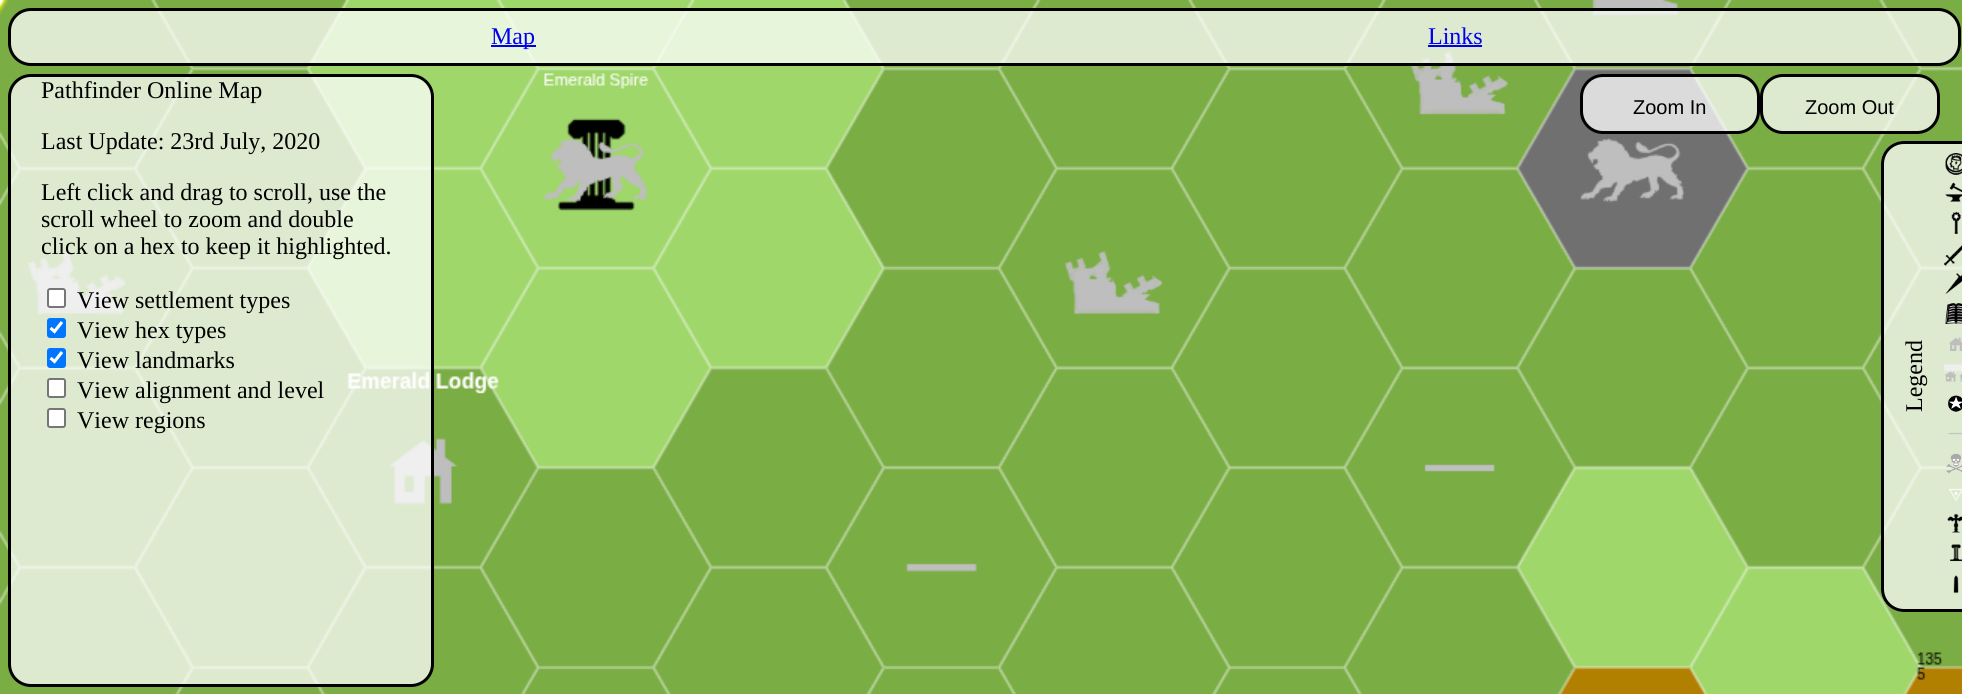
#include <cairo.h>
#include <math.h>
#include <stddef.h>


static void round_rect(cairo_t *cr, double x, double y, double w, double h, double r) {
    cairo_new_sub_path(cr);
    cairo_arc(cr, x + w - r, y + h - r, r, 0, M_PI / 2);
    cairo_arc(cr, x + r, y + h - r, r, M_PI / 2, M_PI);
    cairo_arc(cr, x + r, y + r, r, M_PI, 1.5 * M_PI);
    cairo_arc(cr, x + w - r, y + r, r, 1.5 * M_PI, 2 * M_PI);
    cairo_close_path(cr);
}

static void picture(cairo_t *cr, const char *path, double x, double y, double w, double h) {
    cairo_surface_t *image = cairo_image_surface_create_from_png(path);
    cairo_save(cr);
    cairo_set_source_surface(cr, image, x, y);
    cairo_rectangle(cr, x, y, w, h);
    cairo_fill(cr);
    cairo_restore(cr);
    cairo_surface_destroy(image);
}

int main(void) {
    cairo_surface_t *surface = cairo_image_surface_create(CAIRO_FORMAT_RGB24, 1962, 694);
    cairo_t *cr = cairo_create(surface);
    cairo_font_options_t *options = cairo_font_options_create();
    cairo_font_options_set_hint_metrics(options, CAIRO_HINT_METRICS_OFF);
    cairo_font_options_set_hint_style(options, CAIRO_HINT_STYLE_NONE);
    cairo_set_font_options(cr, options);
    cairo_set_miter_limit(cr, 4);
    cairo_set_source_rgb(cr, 1, 1, 1);
    cairo_paint(cr);
    picture(cr, "img1.png", 0, 0, 1962, 694);
    cairo_set_source_rgba(cr, 1, 1, 1, 0.75);
    round_rect(cr, 9.5, 9.5, 1950, 55, 21.5);
    cairo_fill_preserve(cr);
    cairo_set_source_rgb(cr, 0, 0, 0);
    cairo_set_line_width(cr, 3);
    cairo_stroke(cr);
    cairo_set_source_rgb(cr, 0, 0, 0.933);
    cairo_rectangle(cr, 491, 45, 45, 2);
    cairo_fill(cr);
    cairo_select_font_face(cr, "Liberation Serif", CAIRO_FONT_SLANT_NORMAL, CAIRO_FONT_WEIGHT_NORMAL);
    cairo_set_font_size(cr, 24);
    cairo_move_to(cr, 491, 44);
    cairo_show_text(cr, "Map");
    cairo_move_to(cr, 1428, 44);
    cairo_show_text(cr, "Links");
    cairo_rectangle(cr, 1428, 45, 54, 2);
    cairo_fill(cr);
    cairo_set_source_rgba(cr, 1, 1, 1, 0.75);
    round_rect(cr, 9.5, 75.5, 423, 610, 21.5);
    cairo_fill_preserve(cr);
    cairo_set_source_rgb(cr, 0, 0, 0);
    cairo_stroke(cr);
    cairo_move_to(cr, 41, 98);
    cairo_show_text(cr, "Pathfinder Online Map");
    cairo_move_to(cr, 41, 149);
    cairo_show_text(cr, "Last Update: 23rd July, 2020");
    cairo_move_to(cr, 41, 200);
    cairo_show_text(cr, "Left click and drag to scroll, use the");
    cairo_move_to(cr, 41, 227);
    cairo_show_text(cr, "scroll wheel to zoom and double");
    cairo_move_to(cr, 41, 254);
    cairo_show_text(cr, "click on a hex to keep it highlighted.");
    cairo_set_source_rgb(cr, 1, 1, 1);
    round_rect(cr, 48, 289, 17, 18, 2);
    cairo_fill_preserve(cr);
    cairo_set_source_rgb(cr, 0.463, 0.463, 0.463);
    cairo_set_line_width(cr, 2);
    cairo_stroke(cr);
    cairo_set_source_rgb(cr, 0, 0, 0);
    cairo_move_to(cr, 77, 308);
    cairo_show_text(cr, "View settlement types");
    cairo_set_source_rgb(cr, 0, 0.459, 1);
    round_rect(cr, 47, 318, 19, 20, 3);
    cairo_fill(cr);
    cairo_new_path(cr);
    cairo_move_to(cr, 50.5, 328);
    cairo_line_to(cr, 54.5, 331.5);
    cairo_line_to(cr, 62, 322);
    cairo_set_source_rgb(cr, 1, 1, 1);
    cairo_set_line_width(cr, 3.1);
    cairo_stroke(cr);
    cairo_set_source_rgb(cr, 0, 0, 0);
    cairo_move_to(cr, 77, 338);
    cairo_show_text(cr, "View hex types");
    cairo_set_source_rgb(cr, 0, 0.459, 1);
    round_rect(cr, 47, 348, 19, 20, 3);
    cairo_fill(cr);
    cairo_new_path(cr);
    cairo_move_to(cr, 50.5, 358);
    cairo_line_to(cr, 54.5, 361.5);
    cairo_line_to(cr, 62, 352);
    cairo_set_source_rgb(cr, 1, 1, 1);
    cairo_stroke(cr);
    cairo_set_source_rgb(cr, 0, 0, 0);
    cairo_move_to(cr, 77, 368);
    cairo_show_text(cr, "View landmarks");
    cairo_set_source_rgb(cr, 1, 1, 1);
    round_rect(cr, 48, 379, 17, 18, 2);
    cairo_fill_preserve(cr);
    cairo_set_source_rgb(cr, 0.463, 0.463, 0.463);
    cairo_set_line_width(cr, 2);
    cairo_stroke(cr);
    cairo_set_source_rgb(cr, 0, 0, 0);
    cairo_move_to(cr, 77, 398);
    cairo_show_text(cr, "View alignment and level");
    cairo_set_source_rgb(cr, 1, 1, 1);
    round_rect(cr, 48, 409, 17, 18, 2);
    cairo_fill_preserve(cr);
    cairo_set_source_rgb(cr, 0.463, 0.463, 0.463);
    cairo_stroke(cr);
    cairo_set_source_rgb(cr, 0, 0, 0);
    cairo_move_to(cr, 77, 428);
    cairo_show_text(cr, "View regions");
    cairo_set_source_rgba(cr, 1, 1, 1, 0.75);
    round_rect(cr, 1581.5, 75.5, 177, 57, 21.5);
    cairo_fill_preserve(cr);
    cairo_set_source_rgb(cr, 0, 0, 0);
    cairo_set_line_width(cr, 3);
    cairo_stroke(cr);
    cairo_select_font_face(cr, "Liberation Sans", CAIRO_FONT_SLANT_NORMAL, CAIRO_FONT_WEIGHT_NORMAL);
    cairo_set_font_size(cr, 20);
    cairo_move_to(cr, 1633, 114);
    cairo_show_text(cr, "Zoom In");
    cairo_set_source_rgba(cr, 1, 1, 1, 0.75);
    round_rect(cr, 1761.5, 75.5, 177, 57, 21.5);
    cairo_fill_preserve(cr);
    cairo_set_source_rgb(cr, 0, 0, 0);
    cairo_stroke(cr);
    cairo_move_to(cr, 1805, 114);
    cairo_show_text(cr, "Zoom Out");
    cairo_set_source_rgba(cr, 1, 1, 1, 0.75);
    cairo_new_path(cr);
    cairo_move_to(cr, 1904, 141);
    cairo_line_to(cr, 1962, 141);
    cairo_line_to(cr, 1962, 612);
    cairo_line_to(cr, 1904, 612);
    cairo_curve_to(cr, 1891.5, 612, 1881, 601.5, 1881, 589);
    cairo_line_to(cr, 1881, 164);
    cairo_curve_to(cr, 1881, 151.5, 1891.5, 141, 1904, 141);
    cairo_close_path(cr);
    cairo_fill(cr);
    round_rect(cr, 1882.5, 142.5, 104, 468, 21.5);
    cairo_set_source_rgb(cr, 0, 0, 0);
    cairo_stroke(cr);
    cairo_select_font_face(cr, "Liberation Serif", CAIRO_FONT_SLANT_NORMAL, CAIRO_FONT_WEIGHT_NORMAL);
    cairo_set_font_size(cr, 24);
    cairo_save(cr);
    cairo_translate(cr, 1922, 412);
    cairo_rotate(cr, -90 * M_PI / 180);
    cairo_move_to(cr, 0, 0);
    cairo_show_text(cr, "Legend");
    cairo_restore(cr);
    picture(cr, "img2.png", 1945, 153, 17, 22);
    picture(cr, "img3.png", 1945, 182, 17, 20);
    picture(cr, "img4.png", 1951, 211, 11, 23);
    picture(cr, "img5.png", 1944, 245, 18, 21);
    picture(cr, "img6.png", 1945, 273, 17, 21);
    picture(cr, "img7.png", 1945, 303, 17, 21);
    picture(cr, "img8.png", 1949, 337, 13, 14);
    picture(cr, "img9.png", 1945, 371, 17, 11);
    picture(cr, "img10.png", 1948, 395, 14, 17);
    picture(cr, "img11.png", 1948, 432, 14, 3);
    picture(cr, "img12.png", 1946, 453, 16, 21);
    picture(cr, "img13.png", 1949, 488, 13, 13);
    picture(cr, "img14.png", 1947, 513, 15, 20);
    picture(cr, "img15.png", 1950, 544, 12, 18);
    picture(cr, "img16.png", 1953, 575, 6, 19);
    cairo_surface_write_to_png(surface, "page.png");
    cairo_font_options_destroy(options);
    cairo_destroy(cr);
    cairo_surface_destroy(surface);
    return 0;
}
